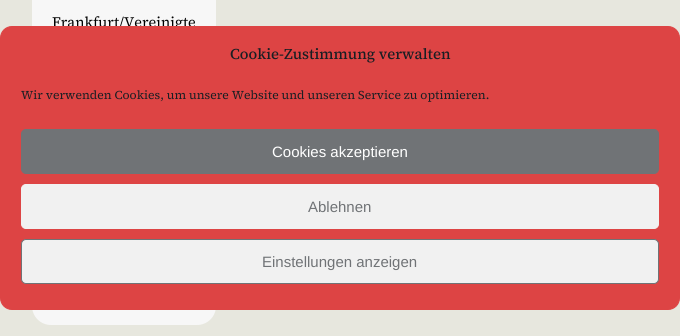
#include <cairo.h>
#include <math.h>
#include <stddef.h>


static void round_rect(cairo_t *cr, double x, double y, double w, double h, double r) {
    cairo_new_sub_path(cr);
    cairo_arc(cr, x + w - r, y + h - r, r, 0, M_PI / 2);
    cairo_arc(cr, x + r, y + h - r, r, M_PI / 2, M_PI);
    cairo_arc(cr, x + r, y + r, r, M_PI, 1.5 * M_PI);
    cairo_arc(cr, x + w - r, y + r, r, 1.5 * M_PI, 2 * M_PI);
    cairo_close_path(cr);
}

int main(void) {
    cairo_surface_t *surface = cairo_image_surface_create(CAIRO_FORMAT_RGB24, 680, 336);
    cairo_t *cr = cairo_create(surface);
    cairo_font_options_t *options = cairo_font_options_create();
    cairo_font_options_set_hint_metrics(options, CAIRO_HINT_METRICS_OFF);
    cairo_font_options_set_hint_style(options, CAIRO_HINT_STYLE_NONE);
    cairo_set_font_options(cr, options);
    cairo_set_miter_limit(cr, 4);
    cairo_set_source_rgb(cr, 0.906, 0.906, 0.871);
    cairo_paint(cr);
    cairo_set_source_rgb(cr, 0.965, 0.965, 0.965);
    cairo_new_path(cr);
    cairo_move_to(cr, 32, -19);
    cairo_line_to(cr, 216, -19);
    cairo_line_to(cr, 216, 306);
    cairo_curve_to(cr, 216, 316.5, 207.5, 325, 197, 325);
    cairo_line_to(cr, 51, 325);
    cairo_curve_to(cr, 40.5, 325, 32, 316.5, 32, 306);
    cairo_close_path(cr);
    cairo_fill(cr);
    cairo_select_font_face(cr, "Source Serif 4", CAIRO_FONT_SLANT_NORMAL, CAIRO_FONT_WEIGHT_NORMAL);
    cairo_set_font_size(cr, 14.5);
    cairo_set_source_rgb(cr, 0, 0, 0);
    cairo_move_to(cr, 52, 27);
    cairo_show_text(cr, "Frankfurt/Vereinigte");
    cairo_set_source_rgb(cr, 0.867, 0.267, 0.267);
    round_rect(cr, 0.5, 26.5, 679, 283, 11.5);
    cairo_fill_preserve(cr);
    cairo_set_line_width(cr, 1);
    cairo_stroke(cr);
    cairo_select_font_face(cr, "Source Serif 4 Medium", CAIRO_FONT_SLANT_NORMAL, CAIRO_FONT_WEIGHT_NORMAL);
    cairo_set_font_size(cr, 15);
    cairo_set_source_rgb(cr, 0.098, 0.118, 0.137);
    cairo_move_to(cr, 230, 59);
    cairo_show_text(cr, "Cookie-Zustimmung verwalten");
    cairo_select_font_face(cr, "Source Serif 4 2", CAIRO_FONT_SLANT_NORMAL, CAIRO_FONT_WEIGHT_NORMAL);
    cairo_set_font_size(cr, 12);
    cairo_move_to(cr, 21, 99);
    cairo_show_text(cr, "Wir verwenden Cookies, um unsere Website und unseren Service zu optimieren.");
    cairo_set_source_rgb(cr, 0.439, 0.451, 0.463);
    round_rect(cr, 21.5, 129.5, 637, 44, 4.5);
    cairo_fill_preserve(cr);
    cairo_stroke(cr);
    cairo_select_font_face(cr, "Liberation Sans", CAIRO_FONT_SLANT_NORMAL, CAIRO_FONT_WEIGHT_NORMAL);
    cairo_set_font_size(cr, 15);
    cairo_set_source_rgb(cr, 1, 1, 1);
    cairo_move_to(cr, 272, 157);
    cairo_show_text(cr, "Cookies akzeptieren");
    cairo_set_source_rgb(cr, 0.945, 0.945, 0.945);
    round_rect(cr, 21.5, 184.5, 637, 44, 4.5);
    cairo_fill_preserve(cr);
    cairo_stroke(cr);
    cairo_set_source_rgb(cr, 0.439, 0.451, 0.463);
    cairo_move_to(cr, 308, 212);
    cairo_show_text(cr, "Ablehnen");
    cairo_set_source_rgb(cr, 0.945, 0.945, 0.945);
    round_rect(cr, 21.5, 239.5, 637, 44, 4.5);
    cairo_fill_preserve(cr);
    cairo_set_source_rgb(cr, 0.439, 0.451, 0.463);
    cairo_stroke(cr);
    cairo_move_to(cr, 262, 267);
    cairo_show_text(cr, "Einstellungen anzeigen");
    cairo_surface_write_to_png(surface, "page.png");
    cairo_font_options_destroy(options);
    cairo_destroy(cr);
    cairo_surface_destroy(surface);
    return 0;
}
